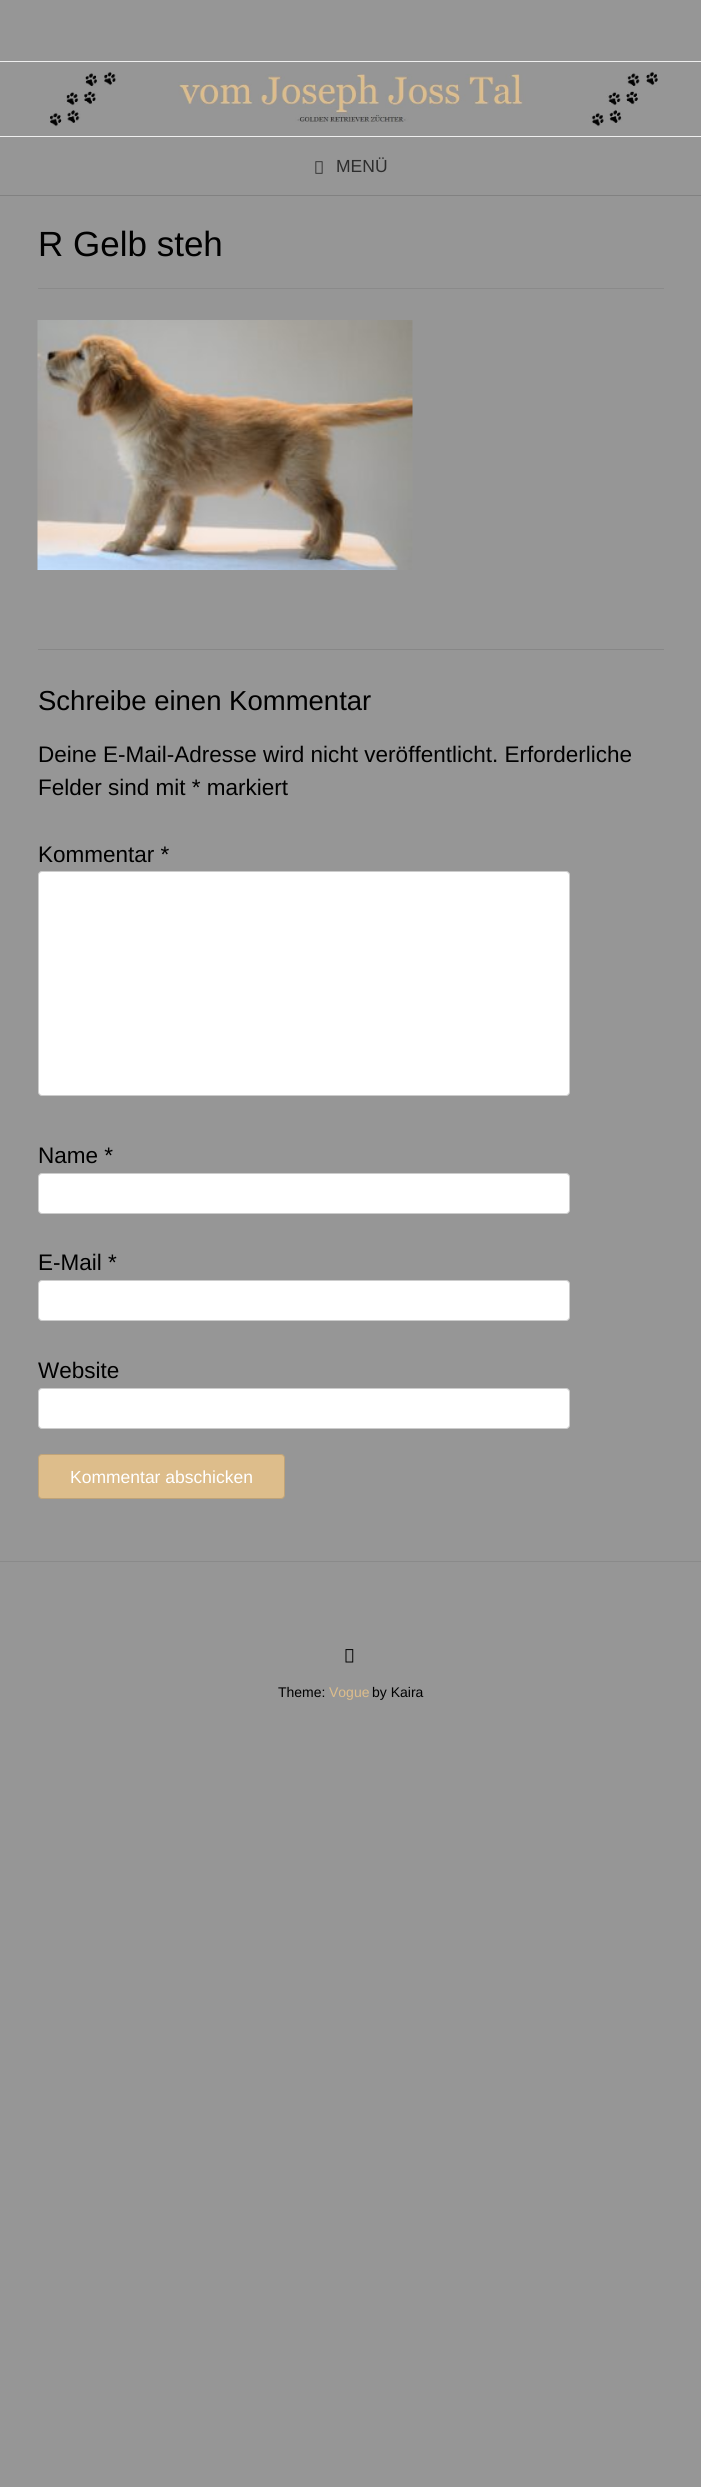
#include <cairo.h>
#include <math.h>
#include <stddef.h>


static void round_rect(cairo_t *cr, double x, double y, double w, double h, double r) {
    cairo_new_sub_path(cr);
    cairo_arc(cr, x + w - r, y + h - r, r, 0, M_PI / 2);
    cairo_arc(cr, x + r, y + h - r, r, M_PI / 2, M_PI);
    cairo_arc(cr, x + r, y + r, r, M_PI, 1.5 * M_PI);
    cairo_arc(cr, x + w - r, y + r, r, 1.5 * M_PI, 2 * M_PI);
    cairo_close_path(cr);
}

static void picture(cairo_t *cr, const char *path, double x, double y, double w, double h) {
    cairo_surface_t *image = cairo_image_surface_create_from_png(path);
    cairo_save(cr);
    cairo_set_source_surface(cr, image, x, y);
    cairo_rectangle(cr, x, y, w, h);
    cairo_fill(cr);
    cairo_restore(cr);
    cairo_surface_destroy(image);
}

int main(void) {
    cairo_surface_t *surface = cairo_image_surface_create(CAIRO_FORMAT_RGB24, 701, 2487);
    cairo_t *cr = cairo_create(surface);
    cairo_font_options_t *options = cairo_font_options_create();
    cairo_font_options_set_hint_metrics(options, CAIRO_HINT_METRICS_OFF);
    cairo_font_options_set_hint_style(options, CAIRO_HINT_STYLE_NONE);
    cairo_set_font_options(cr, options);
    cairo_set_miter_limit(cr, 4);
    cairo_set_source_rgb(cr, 0.588, 0.588, 0.588);
    cairo_paint(cr);
    cairo_set_source_rgb(cr, 0.506, 0.506, 0.506);
    cairo_rectangle(cr, 0, 195, 701, 1);
    cairo_fill(cr);
    cairo_set_source_rgb(cr, 0.937, 0.937, 0.937);
    cairo_rectangle(cr, 0, 61, 701, 1);
    cairo_fill(cr);
    picture(cr, "img1.png", 50, 71, 608, 56);
    cairo_rectangle(cr, 0, 136, 701, 1);
    cairo_fill(cr);
    picture(cr, "img2.png", 315, 161, 8, 13);
    cairo_select_font_face(cr, "Liberation Sans", CAIRO_FONT_SLANT_NORMAL, CAIRO_FONT_WEIGHT_NORMAL);
    cairo_set_font_size(cr, 17.5);
    cairo_set_source_rgb(cr, 0.176, 0.176, 0.176);
    cairo_move_to(cr, 336, 172);
    cairo_show_text(cr, "MENÜ");
    cairo_set_source_rgb(cr, 0.541, 0.541, 0.541);
    cairo_rectangle(cr, 38, 288, 626, 1);
    cairo_fill(cr);
    cairo_set_font_size(cr, 35);
    cairo_set_source_rgb(cr, 0, 0, 0);
    cairo_move_to(cr, 38, 256);
    cairo_show_text(cr, "R Gelb steh");
    cairo_set_source_rgb(cr, 0.529, 0.529, 0.529);
    cairo_rectangle(cr, 38, 649, 626, 1);
    cairo_fill(cr);
    picture(cr, "img3.png", 37, 320, 376, 250);
    cairo_set_font_size(cr, 27.5);
    cairo_set_source_rgb(cr, 0, 0, 0);
    cairo_move_to(cr, 38, 710);
    cairo_show_text(cr, "Schreibe einen Kommentar");
    cairo_set_font_size(cr, 22.5);
    cairo_move_to(cr, 38, 762);
    cairo_show_text(cr, "Deine E-Mail-Adresse wird nicht veröffentlicht. Erforderliche");
    cairo_move_to(cr, 38, 795);
    cairo_show_text(cr, "Felder sind mit * markiert");
    cairo_move_to(cr, 38, 862);
    cairo_show_text(cr, "Kommentar *");
    cairo_set_source_rgb(cr, 1, 1, 1);
    round_rect(cr, 38.5, 871.5, 531, 224, 3.5);
    cairo_fill_preserve(cr);
    cairo_set_source_rgb(cr, 0.8, 0.8, 0.8);
    cairo_set_line_width(cr, 1);
    cairo_stroke(cr);
    cairo_set_source_rgb(cr, 0, 0, 0);
    cairo_move_to(cr, 38, 1163);
    cairo_show_text(cr, "Name *");
    cairo_set_source_rgb(cr, 1, 1, 1);
    round_rect(cr, 38.5, 1173.5, 531, 40, 3.5);
    cairo_fill_preserve(cr);
    cairo_set_source_rgb(cr, 0.8, 0.8, 0.8);
    cairo_stroke(cr);
    cairo_set_source_rgb(cr, 0, 0, 0);
    cairo_move_to(cr, 38, 1270);
    cairo_show_text(cr, "E-Mail *");
    cairo_set_source_rgb(cr, 1, 1, 1);
    round_rect(cr, 38.5, 1280.5, 531, 40, 3.5);
    cairo_fill_preserve(cr);
    cairo_set_source_rgb(cr, 0.8, 0.8, 0.8);
    cairo_stroke(cr);
    cairo_set_source_rgb(cr, 0, 0, 0);
    cairo_move_to(cr, 38, 1378);
    cairo_show_text(cr, "Website");
    cairo_set_source_rgb(cr, 1, 1, 1);
    round_rect(cr, 38.5, 1388.5, 531, 40, 3.5);
    cairo_fill_preserve(cr);
    cairo_set_source_rgb(cr, 0.8, 0.8, 0.8);
    cairo_stroke(cr);
    cairo_set_source_rgb(cr, 0.867, 0.741, 0.545);
    round_rect(cr, 38, 1454, 247, 45, 4);
    cairo_fill(cr);
    round_rect(cr, 38.5, 1454.5, 246, 44, 3.5);
    cairo_set_source_rgba(cr, 0, 0, 0, 0.14);
    cairo_stroke(cr);
    cairo_set_font_size(cr, 17.5);
    cairo_set_source_rgb(cr, 1, 1, 1);
    cairo_move_to(cr, 70, 1483);
    cairo_show_text(cr, "Kommentar abschicken");
    cairo_set_source_rgb(cr, 0.541, 0.541, 0.541);
    cairo_rectangle(cr, 0, 1561, 701, 1);
    cairo_fill(cr);
    picture(cr, "img4.png", 345, 1649, 9, 14);
    cairo_set_font_size(cr, 14);
    cairo_set_source_rgb(cr, 0, 0, 0);
    cairo_move_to(cr, 278, 1697);
    cairo_show_text(cr, "Theme:");
    cairo_set_source_rgb(cr, 0.867, 0.741, 0.545);
    cairo_move_to(cr, 329, 1697);
    cairo_show_text(cr, "Vogue");
    cairo_set_source_rgb(cr, 0, 0, 0);
    cairo_move_to(cr, 372, 1697);
    cairo_show_text(cr, "by Kaira");
    cairo_surface_write_to_png(surface, "page.png");
    cairo_font_options_destroy(options);
    cairo_destroy(cr);
    cairo_surface_destroy(surface);
    return 0;
}
